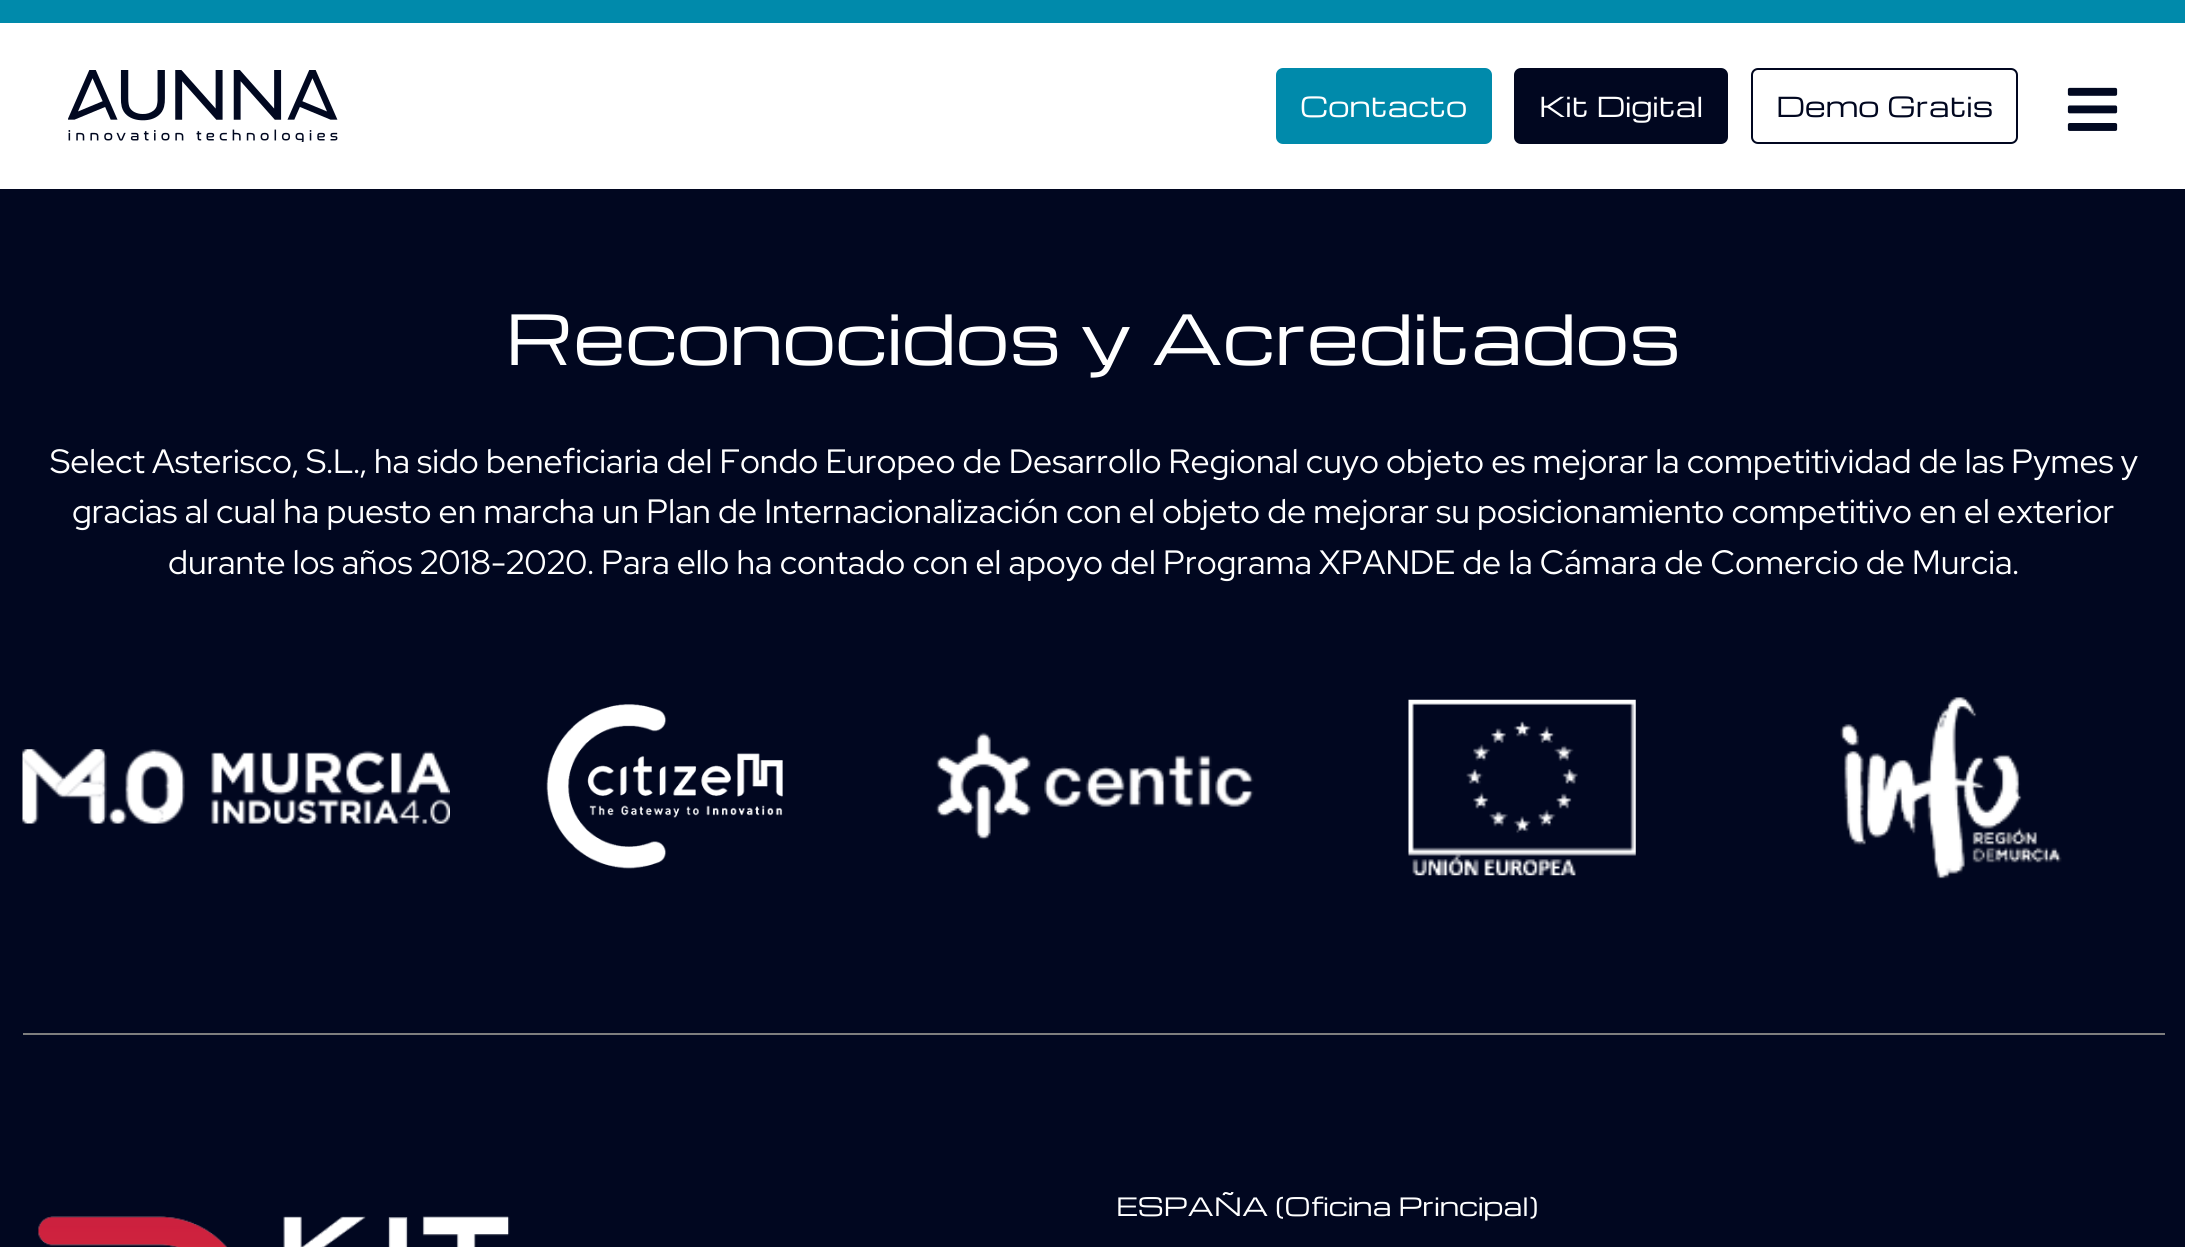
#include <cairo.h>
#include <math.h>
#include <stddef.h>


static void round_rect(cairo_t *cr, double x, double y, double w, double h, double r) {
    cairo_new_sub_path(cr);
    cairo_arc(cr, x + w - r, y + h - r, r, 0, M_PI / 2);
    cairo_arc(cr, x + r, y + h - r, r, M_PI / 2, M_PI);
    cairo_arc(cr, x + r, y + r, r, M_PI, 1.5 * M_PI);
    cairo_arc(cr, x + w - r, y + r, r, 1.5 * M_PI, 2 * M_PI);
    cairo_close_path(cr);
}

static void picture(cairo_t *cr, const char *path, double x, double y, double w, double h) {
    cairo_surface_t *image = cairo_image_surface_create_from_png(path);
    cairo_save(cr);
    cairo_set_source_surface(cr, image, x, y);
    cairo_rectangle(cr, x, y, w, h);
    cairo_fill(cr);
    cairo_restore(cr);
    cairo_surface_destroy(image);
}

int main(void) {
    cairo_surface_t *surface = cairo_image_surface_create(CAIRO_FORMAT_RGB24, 2185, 1247);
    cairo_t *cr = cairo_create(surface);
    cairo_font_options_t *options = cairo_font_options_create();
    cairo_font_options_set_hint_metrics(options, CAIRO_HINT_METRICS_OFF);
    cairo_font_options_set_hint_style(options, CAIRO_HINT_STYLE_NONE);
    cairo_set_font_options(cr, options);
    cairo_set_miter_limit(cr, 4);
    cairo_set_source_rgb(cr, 0.004, 0.031, 0.125);
    cairo_paint(cr);
    cairo_set_source_rgb(cr, 1, 1, 1);
    cairo_rectangle(cr, 0, 23, 2185, 166);
    cairo_fill(cr);
    cairo_set_source_rgb(cr, 0, 0.541, 0.671);
    cairo_rectangle(cr, 0, 0, 2185, 23);
    cairo_fill(cr);
    picture(cr, "img1.png", 68, 70, 270, 72);
    round_rect(cr, 1277, 69, 214, 74, 6);
    cairo_fill_preserve(cr);
    cairo_stroke(cr);
    cairo_select_font_face(cr, "Michroma", CAIRO_FONT_SLANT_NORMAL, CAIRO_FONT_WEIGHT_NORMAL);
    cairo_set_font_size(cr, 27);
    cairo_set_source_rgb(cr, 1, 1, 1);
    cairo_move_to(cr, 1300, 117);
    cairo_show_text(cr, "Contacto");
    cairo_set_source_rgb(cr, 0.004, 0.031, 0.125);
    round_rect(cr, 1515, 69, 212, 74, 6);
    cairo_fill_preserve(cr);
    cairo_stroke(cr);
    cairo_set_source_rgb(cr, 1, 1, 1);
    cairo_move_to(cr, 1539, 117);
    cairo_show_text(cr, "Kit Digital");
    round_rect(cr, 1752, 69, 265, 74, 6);
    cairo_set_source_rgb(cr, 0.004, 0.031, 0.125);
    cairo_stroke(cr);
    cairo_move_to(cr, 1776, 117);
    cairo_show_text(cr, "Demo Gratis");
    picture(cr, "img2.png", 2067, 87, 51, 44);
    cairo_set_font_size(cr, 67.5);
    cairo_set_source_rgb(cr, 1, 1, 1);
    cairo_move_to(cr, 505, 365);
    cairo_show_text(cr, "Reconocidos y Acreditados");
    cairo_select_font_face(cr, "Red Hat Display", CAIRO_FONT_SLANT_NORMAL, CAIRO_FONT_WEIGHT_NORMAL);
    cairo_set_font_size(cr, 33.75);
    cairo_move_to(cr, 50, 473);
    cairo_show_text(cr, "Select Asterisco, S.L., ha sido beneficiaria del Fondo Europeo de Desarrollo Regional cuyo objeto es mejorar la competitividad de las Pymes y");
    cairo_move_to(cr, 72, 523);
    cairo_show_text(cr, "gracias al cual ha puesto en marcha un Plan de Internacionalización con el objeto de mejorar su posicionamiento competitivo en el exterior");
    cairo_move_to(cr, 168, 574);
    cairo_show_text(cr, "durante los años 2018-2020. Para ello ha contado con el apoyo del Programa XPANDE de la Cámara de Comercio de Murcia.");
    picture(cr, "img3.png", 22, 749, 428, 75);
    picture(cr, "img4.png", 546, 704, 237, 165);
    picture(cr, "img5.png", 935, 732, 319, 108);
    picture(cr, "img6.png", 1408, 699, 228, 177);
    picture(cr, "img7.png", 1840, 697, 222, 182);
    cairo_set_source_rgb(cr, 0.494, 0.494, 0.494);
    cairo_rectangle(cr, 23, 1033, 2142, 2);
    cairo_fill(cr);
    cairo_select_font_face(cr, "Michroma", CAIRO_FONT_SLANT_NORMAL, CAIRO_FONT_WEIGHT_NORMAL);
    cairo_set_font_size(cr, 24.75);
    cairo_set_source_rgb(cr, 1, 1, 1);
    cairo_move_to(cr, 1116, 1216);
    cairo_show_text(cr, "ESPAÑA (Oficina Principal)");
    picture(cr, "img8.png", 38, 1216, 472, 31);
    cairo_surface_write_to_png(surface, "page.png");
    cairo_font_options_destroy(options);
    cairo_destroy(cr);
    cairo_surface_destroy(surface);
    return 0;
}
